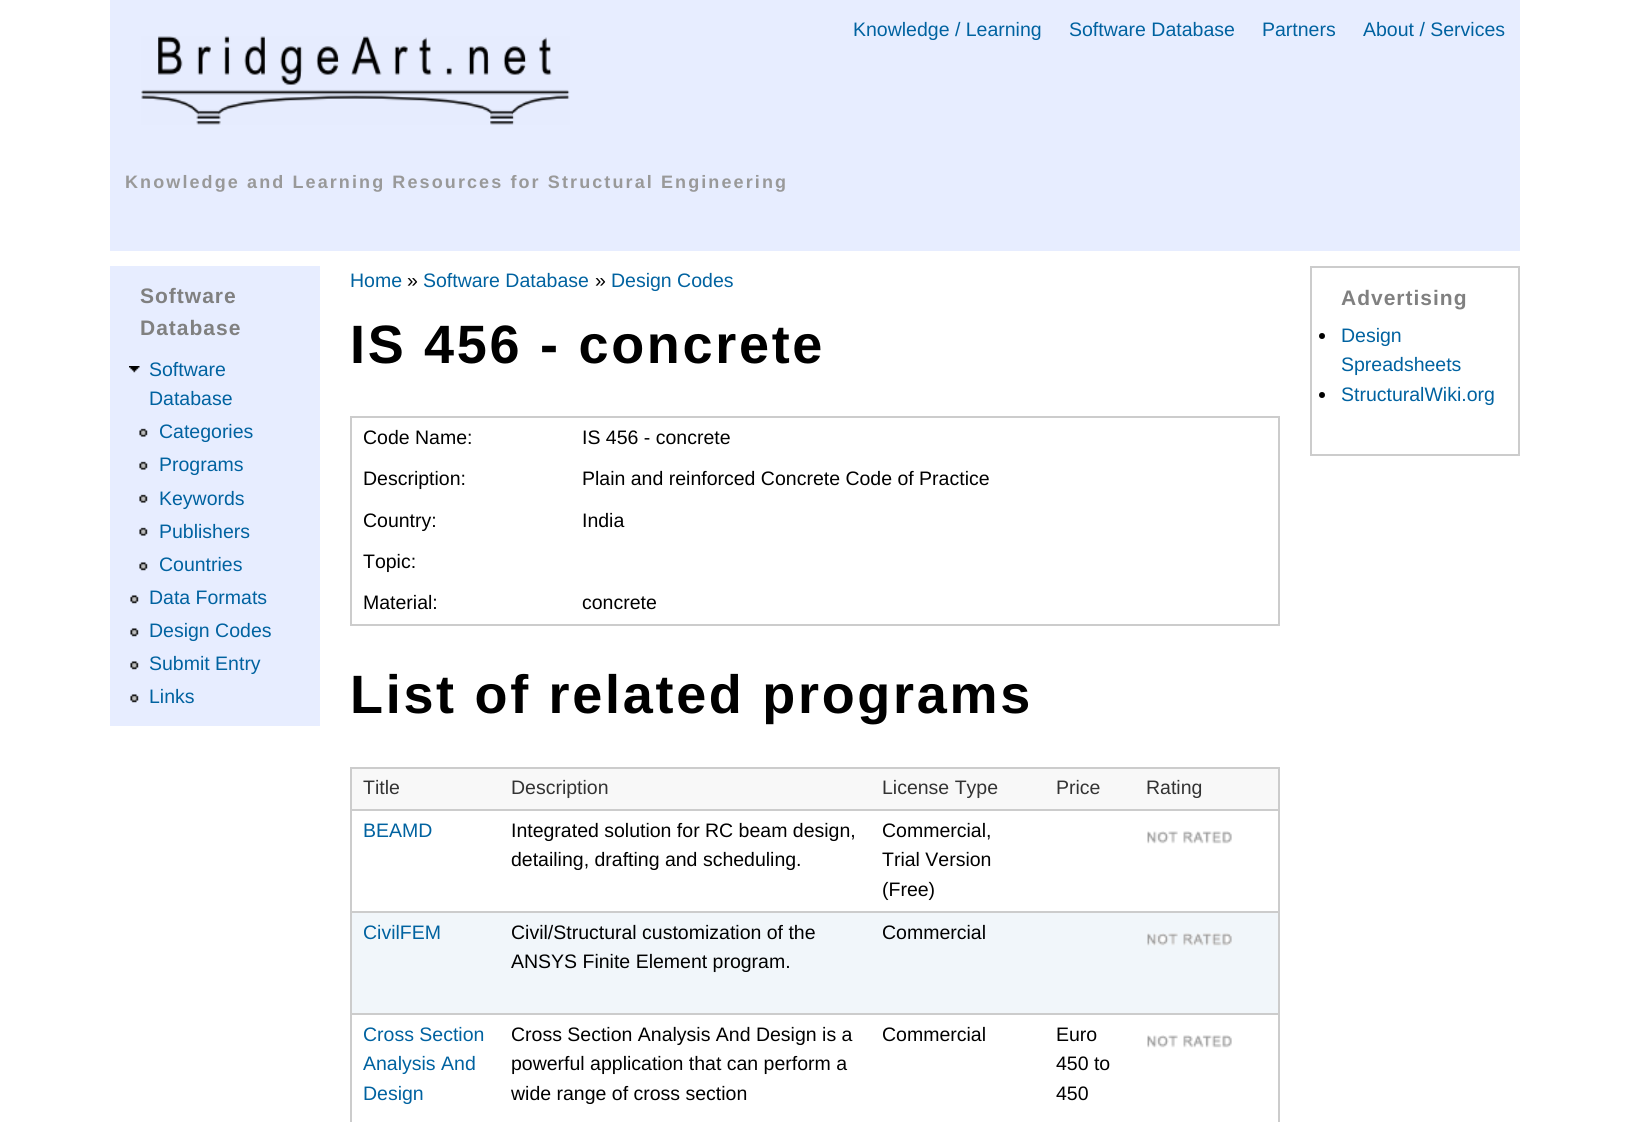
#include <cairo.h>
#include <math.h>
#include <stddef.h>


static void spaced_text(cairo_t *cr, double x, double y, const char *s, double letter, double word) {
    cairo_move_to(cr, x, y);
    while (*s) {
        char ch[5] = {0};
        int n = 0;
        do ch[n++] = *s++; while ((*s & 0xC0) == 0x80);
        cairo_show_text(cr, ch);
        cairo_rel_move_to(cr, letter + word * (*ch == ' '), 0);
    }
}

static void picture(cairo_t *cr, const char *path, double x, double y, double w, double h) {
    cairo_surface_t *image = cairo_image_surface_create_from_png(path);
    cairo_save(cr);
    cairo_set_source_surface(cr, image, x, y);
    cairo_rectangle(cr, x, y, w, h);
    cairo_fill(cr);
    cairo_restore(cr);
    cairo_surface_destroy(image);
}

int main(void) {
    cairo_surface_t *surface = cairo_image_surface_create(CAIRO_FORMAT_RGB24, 1629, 1122);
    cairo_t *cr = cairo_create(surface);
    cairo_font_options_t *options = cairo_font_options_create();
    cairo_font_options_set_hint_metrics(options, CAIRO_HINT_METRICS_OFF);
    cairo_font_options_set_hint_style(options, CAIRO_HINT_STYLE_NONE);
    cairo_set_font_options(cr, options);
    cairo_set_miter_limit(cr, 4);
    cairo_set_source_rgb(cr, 1, 1, 1);
    cairo_paint(cr);
    cairo_set_source_rgb(cr, 0.906, 0.929, 1);
    cairo_rectangle(cr, 110, 0, 1410, 251);
    cairo_fill(cr);
    cairo_select_font_face(cr, "Liberation Sans", CAIRO_FONT_SLANT_NORMAL, CAIRO_FONT_WEIGHT_NORMAL);
    cairo_set_font_size(cr, 19.5);
    cairo_set_source_rgb(cr, 0, 0.384, 0.627);
    cairo_move_to(cr, 853, 36);
    cairo_show_text(cr, "Knowledge / Learning");
    cairo_move_to(cr, 1069, 36);
    cairo_show_text(cr, "Software Database");
    cairo_move_to(cr, 1262, 36);
    cairo_show_text(cr, "Partners");
    cairo_move_to(cr, 1363, 36);
    cairo_show_text(cr, "About / Services");
    picture(cr, "img1.png", 141, 36, 429, 89);
    cairo_select_font_face(cr, "Liberation Sans", CAIRO_FONT_SLANT_NORMAL, CAIRO_FONT_WEIGHT_BOLD);
    cairo_set_font_size(cr, 18);
    cairo_set_source_rgb(cr, 0.6, 0.6, 0.6);
    spaced_text(cr, 125, 188, "Knowledge and Learning Resources for Structural Engineering", 2.1, 0);
    cairo_set_source_rgb(cr, 0.906, 0.929, 1);
    cairo_rectangle(cr, 110, 266, 210, 460);
    cairo_fill(cr);
    cairo_set_font_size(cr, 21);
    cairo_set_source_rgb(cr, 0.502, 0.502, 0.502);
    spaced_text(cr, 140, 303, "Software", 1, 0);
    spaced_text(cr, 140, 335, "Database", 1, 0);
    picture(cr, "img2.png", 129, 366, 11, 7);
    cairo_select_font_face(cr, "Liberation Sans", CAIRO_FONT_SLANT_NORMAL, CAIRO_FONT_WEIGHT_NORMAL);
    cairo_set_font_size(cr, 19.5);
    cairo_set_source_rgb(cr, 0, 0.384, 0.627);
    cairo_move_to(cr, 149, 376);
    cairo_show_text(cr, "Software");
    cairo_move_to(cr, 149, 405);
    cairo_show_text(cr, "Database");
    picture(cr, "img3.png", 139, 428, 9, 9);
    cairo_move_to(cr, 159, 438);
    cairo_show_text(cr, "Categories");
    picture(cr, "img3.png", 139, 461, 9, 9);
    cairo_move_to(cr, 159, 471);
    cairo_show_text(cr, "Programs");
    picture(cr, "img3.png", 139, 494, 9, 9);
    cairo_move_to(cr, 159, 505);
    cairo_show_text(cr, "Keywords");
    picture(cr, "img3.png", 139, 527, 9, 9);
    cairo_move_to(cr, 159, 538);
    cairo_show_text(cr, "Publishers");
    picture(cr, "img4.png", 139, 562, 9, 9);
    cairo_move_to(cr, 159, 571);
    cairo_show_text(cr, "Countries");
    picture(cr, "img4.png", 130, 595, 9, 9);
    cairo_move_to(cr, 149, 604);
    cairo_show_text(cr, "Data Formats");
    picture(cr, "img4.png", 130, 628, 9, 9);
    cairo_move_to(cr, 149, 637);
    cairo_show_text(cr, "Design Codes");
    picture(cr, "img4.png", 130, 661, 9, 9);
    cairo_move_to(cr, 149, 670);
    cairo_show_text(cr, "Submit Entry");
    picture(cr, "img4.png", 130, 694, 9, 9);
    cairo_move_to(cr, 149, 703);
    cairo_show_text(cr, "Links");
    cairo_move_to(cr, 350, 287);
    cairo_show_text(cr, "Home");
    cairo_set_source_rgb(cr, 0, 0, 0);
    cairo_move_to(cr, 407, 287);
    cairo_show_text(cr, "»");
    cairo_set_source_rgb(cr, 0, 0.384, 0.627);
    cairo_move_to(cr, 423, 287);
    cairo_show_text(cr, "Software Database");
    cairo_set_source_rgb(cr, 0, 0, 0);
    cairo_move_to(cr, 595, 287);
    cairo_show_text(cr, "»");
    cairo_set_source_rgb(cr, 0, 0.384, 0.627);
    cairo_move_to(cr, 611, 287);
    cairo_show_text(cr, "Design Codes");
    cairo_select_font_face(cr, "Liberation Sans", CAIRO_FONT_SLANT_NORMAL, CAIRO_FONT_WEIGHT_BOLD);
    cairo_set_font_size(cr, 54);
    cairo_set_source_rgb(cr, 0, 0, 0);
    spaced_text(cr, 350, 363, "IS 456 - concrete", 2.7, 0);
    cairo_set_source_rgb(cr, 0.8, 0.8, 0.8);
    cairo_rectangle(cr, 350, 416, 930, 2);
    cairo_fill(cr);
    cairo_rectangle(cr, 1278, 416, 2, 210);
    cairo_fill(cr);
    cairo_rectangle(cr, 350, 624, 930, 2);
    cairo_fill(cr);
    cairo_rectangle(cr, 350, 416, 2, 210);
    cairo_fill(cr);
    cairo_select_font_face(cr, "Liberation Sans", CAIRO_FONT_SLANT_NORMAL, CAIRO_FONT_WEIGHT_NORMAL);
    cairo_set_font_size(cr, 19.5);
    cairo_set_source_rgb(cr, 0, 0, 0);
    cairo_move_to(cr, 363, 444);
    cairo_show_text(cr, "Code Name:");
    cairo_move_to(cr, 582, 444);
    cairo_show_text(cr, "IS 456 - concrete");
    cairo_move_to(cr, 363, 485);
    cairo_show_text(cr, "Description:");
    cairo_move_to(cr, 582, 485);
    cairo_show_text(cr, "Plain and reinforced Concrete Code of Practice");
    cairo_move_to(cr, 363, 527);
    cairo_show_text(cr, "Country:");
    cairo_move_to(cr, 582, 527);
    cairo_show_text(cr, "India");
    cairo_move_to(cr, 363, 568);
    cairo_show_text(cr, "Topic:");
    cairo_move_to(cr, 363, 609);
    cairo_show_text(cr, "Material:");
    cairo_move_to(cr, 582, 609);
    cairo_show_text(cr, "concrete");
    cairo_select_font_face(cr, "Liberation Sans", CAIRO_FONT_SLANT_NORMAL, CAIRO_FONT_WEIGHT_BOLD);
    cairo_set_font_size(cr, 54);
    spaced_text(cr, 350, 713, "List of related programs", 2.7, 0);
    cairo_set_source_rgb(cr, 0.8, 0.8, 0.8);
    cairo_rectangle(cr, 350, 767, 930, 2);
    cairo_fill(cr);
    cairo_rectangle(cr, 1278, 767, 2, 355);
    cairo_fill(cr);
    cairo_rectangle(cr, 350, 767, 2, 355);
    cairo_fill(cr);
    cairo_set_source_rgb(cr, 0.969, 0.969, 0.969);
    cairo_rectangle(cr, 352, 769, 926, 40);
    cairo_fill(cr);
    cairo_select_font_face(cr, "Liberation Sans", CAIRO_FONT_SLANT_NORMAL, CAIRO_FONT_WEIGHT_NORMAL);
    cairo_set_font_size(cr, 19.5);
    cairo_set_source_rgb(cr, 0.2, 0.2, 0.2);
    cairo_move_to(cr, 363, 794);
    cairo_show_text(cr, "Title");
    cairo_move_to(cr, 511, 794);
    cairo_show_text(cr, "Description");
    cairo_move_to(cr, 882, 794);
    cairo_show_text(cr, "License Type");
    cairo_move_to(cr, 1056, 794);
    cairo_show_text(cr, "Price");
    cairo_set_source_rgb(cr, 0.8, 0.8, 0.8);
    cairo_rectangle(cr, 350, 809, 930, 2);
    cairo_fill(cr);
    cairo_set_source_rgb(cr, 0.2, 0.2, 0.2);
    cairo_move_to(cr, 1146, 794);
    cairo_show_text(cr, "Rating");
    cairo_set_source_rgb(cr, 0.8, 0.8, 0.8);
    cairo_rectangle(cr, 350, 911, 930, 2);
    cairo_fill(cr);
    cairo_set_source_rgb(cr, 0, 0.384, 0.627);
    cairo_move_to(cr, 363, 837);
    cairo_show_text(cr, "BEAMD");
    cairo_set_source_rgb(cr, 0, 0, 0);
    cairo_move_to(cr, 511, 837);
    cairo_show_text(cr, "Integrated solution for RC beam design,");
    cairo_move_to(cr, 511, 866);
    cairo_show_text(cr, "detailing, drafting and scheduling.");
    cairo_move_to(cr, 882, 837);
    cairo_show_text(cr, "Commercial,");
    cairo_move_to(cr, 882, 866);
    cairo_show_text(cr, "Trial Version");
    cairo_move_to(cr, 882, 896);
    cairo_show_text(cr, "(Free)");
    picture(cr, "img5.png", 1147, 831, 85, 13);
    cairo_set_source_rgb(cr, 0.8, 0.8, 0.8);
    cairo_rectangle(cr, 350, 1013, 930, 2);
    cairo_fill(cr);
    cairo_set_source_rgb(cr, 0.945, 0.961, 0.98);
    cairo_rectangle(cr, 352, 913, 926, 100);
    cairo_fill(cr);
    cairo_set_source_rgb(cr, 0, 0.384, 0.627);
    cairo_move_to(cr, 363, 939);
    cairo_show_text(cr, "CivilFEM");
    cairo_set_source_rgb(cr, 0, 0, 0);
    cairo_move_to(cr, 511, 939);
    cairo_show_text(cr, "Civil/Structural customization of the");
    cairo_move_to(cr, 511, 968);
    cairo_show_text(cr, "ANSYS Finite Element program.");
    cairo_move_to(cr, 882, 939);
    cairo_show_text(cr, "Commercial");
    picture(cr, "img6.png", 1147, 933, 85, 13);
    cairo_set_source_rgb(cr, 0, 0.384, 0.627);
    cairo_move_to(cr, 363, 1041);
    cairo_show_text(cr, "Cross Section");
    cairo_move_to(cr, 363, 1070);
    cairo_show_text(cr, "Analysis And");
    cairo_move_to(cr, 363, 1100);
    cairo_show_text(cr, "Design");
    cairo_set_source_rgb(cr, 0, 0, 0);
    cairo_move_to(cr, 511, 1041);
    cairo_show_text(cr, "Cross Section Analysis And Design is a");
    cairo_move_to(cr, 511, 1070);
    cairo_show_text(cr, "powerful application that can perform a");
    cairo_move_to(cr, 511, 1100);
    cairo_show_text(cr, "wide range of cross section");
    cairo_move_to(cr, 882, 1041);
    cairo_show_text(cr, "Commercial");
    cairo_move_to(cr, 1056, 1041);
    cairo_show_text(cr, "Euro");
    cairo_move_to(cr, 1056, 1070);
    cairo_show_text(cr, "450 to");
    cairo_move_to(cr, 1056, 1100);
    cairo_show_text(cr, "450");
    picture(cr, "img5.png", 1147, 1035, 85, 13);
    cairo_rectangle(cr, 1311, 267, 208, 188);
    cairo_set_source_rgb(cr, 0.8, 0.8, 0.8);
    cairo_stroke(cr);
    cairo_select_font_face(cr, "Liberation Sans", CAIRO_FONT_SLANT_NORMAL, CAIRO_FONT_WEIGHT_BOLD);
    cairo_set_font_size(cr, 21);
    cairo_set_source_rgb(cr, 0.502, 0.502, 0.502);
    spaced_text(cr, 1341, 305, "Advertising", 1, 0);
    cairo_set_source_rgb(cr, 0, 0, 0);
    cairo_new_path(cr);
    cairo_arc(cr, 1322, 336, 3, 0, 2 * M_PI);
    cairo_fill(cr);
    cairo_select_font_face(cr, "Liberation Sans", CAIRO_FONT_SLANT_NORMAL, CAIRO_FONT_WEIGHT_NORMAL);
    cairo_set_font_size(cr, 19.5);
    cairo_set_source_rgb(cr, 0, 0.384, 0.627);
    cairo_move_to(cr, 1341, 342);
    cairo_show_text(cr, "Design");
    cairo_move_to(cr, 1341, 371);
    cairo_show_text(cr, "Spreadsheets");
    cairo_set_source_rgb(cr, 0, 0, 0);
    cairo_new_path(cr);
    cairo_arc(cr, 1322, 395, 3, 0, 2 * M_PI);
    cairo_fill(cr);
    cairo_set_source_rgb(cr, 0, 0.384, 0.627);
    cairo_move_to(cr, 1341, 401);
    cairo_show_text(cr, "StructuralWiki.org");
    cairo_surface_write_to_png(surface, "page.png");
    cairo_font_options_destroy(options);
    cairo_destroy(cr);
    cairo_surface_destroy(surface);
    return 0;
}
